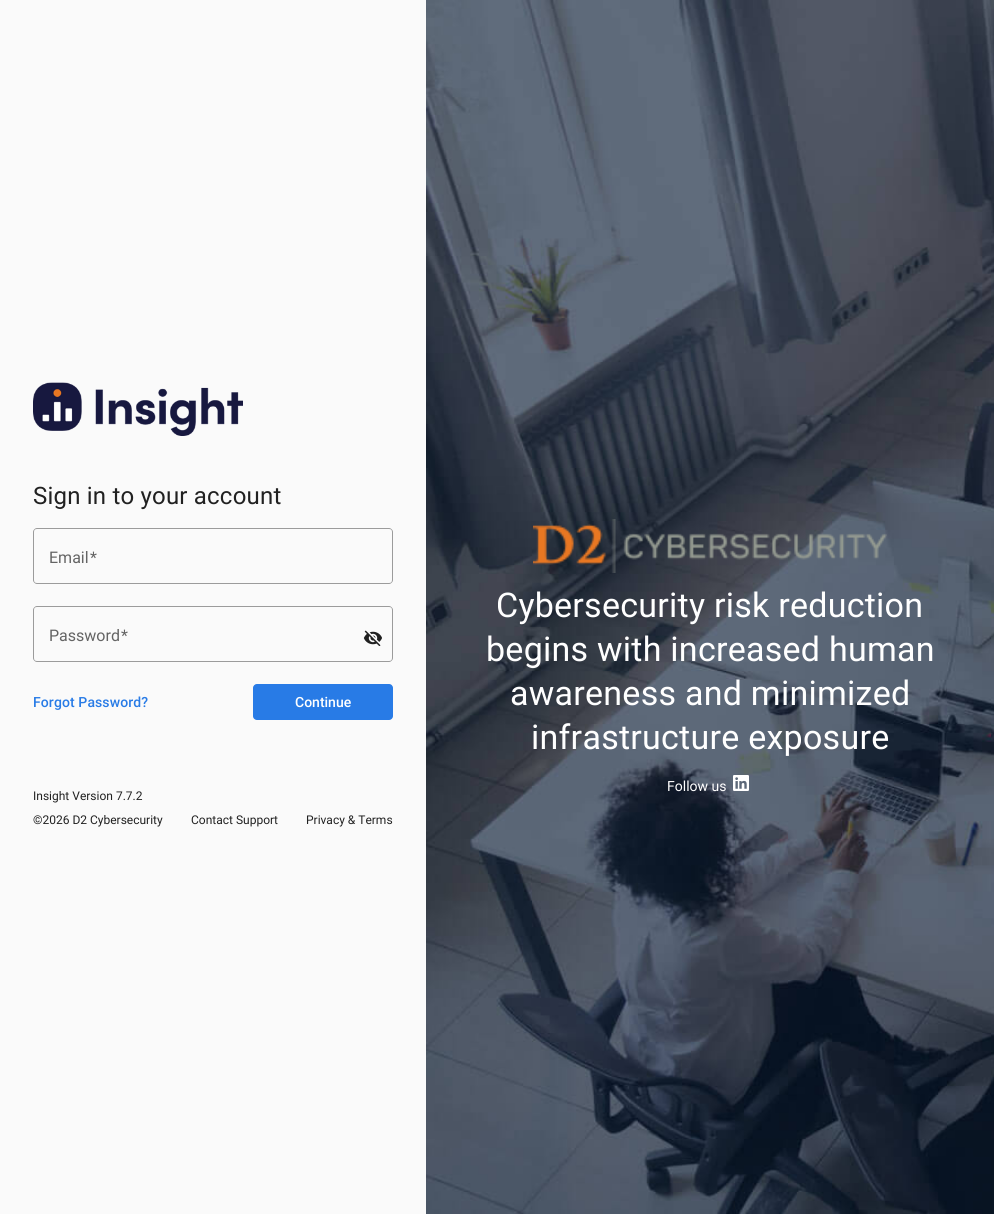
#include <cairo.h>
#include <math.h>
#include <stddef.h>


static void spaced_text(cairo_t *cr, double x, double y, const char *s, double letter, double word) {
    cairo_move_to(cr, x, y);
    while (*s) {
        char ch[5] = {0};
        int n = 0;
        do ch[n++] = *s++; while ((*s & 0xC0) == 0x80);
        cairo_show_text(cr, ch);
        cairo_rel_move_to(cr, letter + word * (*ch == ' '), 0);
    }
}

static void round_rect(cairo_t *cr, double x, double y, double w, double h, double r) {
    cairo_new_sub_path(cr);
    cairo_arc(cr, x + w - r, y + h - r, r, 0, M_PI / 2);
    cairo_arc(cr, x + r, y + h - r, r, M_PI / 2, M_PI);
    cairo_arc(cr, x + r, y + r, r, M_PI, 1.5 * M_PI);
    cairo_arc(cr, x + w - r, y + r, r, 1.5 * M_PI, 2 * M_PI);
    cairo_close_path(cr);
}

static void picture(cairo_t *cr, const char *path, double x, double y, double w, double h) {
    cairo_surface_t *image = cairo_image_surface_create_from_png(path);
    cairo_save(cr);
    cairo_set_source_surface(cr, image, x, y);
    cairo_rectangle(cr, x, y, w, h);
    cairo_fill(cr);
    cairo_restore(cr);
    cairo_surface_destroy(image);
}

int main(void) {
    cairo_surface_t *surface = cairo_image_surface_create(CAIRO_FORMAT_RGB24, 994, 1214);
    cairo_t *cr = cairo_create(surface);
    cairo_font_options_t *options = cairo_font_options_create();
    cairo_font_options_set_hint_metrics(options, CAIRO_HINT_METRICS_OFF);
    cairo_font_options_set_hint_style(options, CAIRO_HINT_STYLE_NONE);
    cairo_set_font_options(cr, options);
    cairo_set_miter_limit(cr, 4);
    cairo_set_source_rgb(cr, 0.98, 0.98, 0.98);
    cairo_paint(cr);
    picture(cr, "img1.png", 33, 382, 210, 54);
    cairo_select_font_face(cr, "Roboto", CAIRO_FONT_SLANT_NORMAL, CAIRO_FONT_WEIGHT_NORMAL);
    cairo_set_font_size(cr, 24);
    cairo_set_source_rgb(cr, 0.129, 0.129, 0.129);
    spaced_text(cr, 33, 504, "Sign in to your account", 0.2, 0);
    cairo_set_source_rgb(cr, 0.608, 0.608, 0.608);
    cairo_set_fill_rule(cr, CAIRO_FILL_RULE_EVEN_ODD);
    cairo_new_path(cr);
    cairo_move_to(cr, 37, 528);
    cairo_line_to(cr, 45, 528);
    cairo_line_to(cr, 45, 584);
    cairo_line_to(cr, 37, 584);
    cairo_curve_to(cr, 35, 584, 33, 582, 33, 580);
    cairo_line_to(cr, 33, 532);
    cairo_curve_to(cr, 33, 530, 35, 528, 37, 528);
    cairo_close_path(cr);
    cairo_move_to(cr, 37, 529);
    cairo_line_to(cr, 45, 529);
    cairo_line_to(cr, 45, 583);
    cairo_line_to(cr, 37, 583);
    cairo_curve_to(cr, 35, 583, 34, 582, 34, 580);
    cairo_line_to(cr, 34, 532);
    cairo_curve_to(cr, 34, 530, 35, 529, 37, 529);
    cairo_close_path(cr);
    cairo_fill(cr);
    cairo_set_fill_rule(cr, CAIRO_FILL_RULE_WINDING);
    cairo_new_path(cr);
    cairo_move_to(cr, 44, 528);
    cairo_line_to(cr, 93, 528);
    cairo_line_to(cr, 93, 529);
    cairo_line_to(cr, 45, 529);
    cairo_close_path(cr);
    cairo_move_to(cr, 93, 584);
    cairo_line_to(cr, 44, 584);
    cairo_line_to(cr, 45, 583);
    cairo_line_to(cr, 93, 583);
    cairo_close_path(cr);
    cairo_fill(cr);
    cairo_set_font_size(cr, 16);
    cairo_set_source_rgb(cr, 0.392, 0.392, 0.392);
    cairo_move_to(cr, 49, 563);
    cairo_show_text(cr, "Email");
    cairo_set_source_rgb(cr, 0.608, 0.608, 0.608);
    cairo_set_fill_rule(cr, CAIRO_FILL_RULE_EVEN_ODD);
    cairo_new_path(cr);
    cairo_move_to(cr, 93, 528);
    cairo_line_to(cr, 389, 528);
    cairo_curve_to(cr, 391, 528, 393, 530, 393, 532);
    cairo_line_to(cr, 393, 580);
    cairo_curve_to(cr, 393, 582, 391, 584, 389, 584);
    cairo_line_to(cr, 93, 584);
    cairo_close_path(cr);
    cairo_move_to(cr, 93, 529);
    cairo_line_to(cr, 389, 529);
    cairo_curve_to(cr, 391, 529, 392, 530, 392, 532);
    cairo_line_to(cr, 392, 580);
    cairo_curve_to(cr, 392, 582, 391, 583, 389, 583);
    cairo_line_to(cr, 93, 583);
    cairo_close_path(cr);
    cairo_fill(cr);
    cairo_set_source_rgb(cr, 0.392, 0.392, 0.392);
    cairo_move_to(cr, 90, 563);
    cairo_show_text(cr, "*");
    cairo_set_source_rgb(cr, 0.608, 0.608, 0.608);
    cairo_new_path(cr);
    cairo_move_to(cr, 37, 606);
    cairo_line_to(cr, 45, 606);
    cairo_line_to(cr, 45, 662);
    cairo_line_to(cr, 37, 662);
    cairo_curve_to(cr, 35, 662, 33, 660, 33, 658);
    cairo_line_to(cr, 33, 610);
    cairo_curve_to(cr, 33, 608, 35, 606, 37, 606);
    cairo_close_path(cr);
    cairo_move_to(cr, 37, 607);
    cairo_line_to(cr, 45, 607);
    cairo_line_to(cr, 45, 661);
    cairo_line_to(cr, 37, 661);
    cairo_curve_to(cr, 35, 661, 34, 660, 34, 658);
    cairo_line_to(cr, 34, 610);
    cairo_curve_to(cr, 34, 608, 35, 607, 37, 607);
    cairo_close_path(cr);
    cairo_fill(cr);
    cairo_set_fill_rule(cr, CAIRO_FILL_RULE_WINDING);
    cairo_new_path(cr);
    cairo_move_to(cr, 44, 606);
    cairo_line_to(cr, 124, 606);
    cairo_line_to(cr, 124, 607);
    cairo_line_to(cr, 45, 607);
    cairo_close_path(cr);
    cairo_fill(cr);
    cairo_new_path(cr);
    cairo_move_to(cr, 124, 662);
    cairo_line_to(cr, 44, 662);
    cairo_line_to(cr, 45, 661);
    cairo_line_to(cr, 124, 661);
    cairo_close_path(cr);
    cairo_fill(cr);
    cairo_set_source_rgb(cr, 0.392, 0.392, 0.392);
    cairo_move_to(cr, 49, 641);
    cairo_show_text(cr, "Password");
    picture(cr, "img2.png", 363, 630, 19, 16);
    cairo_set_source_rgb(cr, 0.608, 0.608, 0.608);
    cairo_set_fill_rule(cr, CAIRO_FILL_RULE_EVEN_ODD);
    cairo_new_path(cr);
    cairo_move_to(cr, 124, 606);
    cairo_line_to(cr, 389, 606);
    cairo_curve_to(cr, 391, 606, 393, 608, 393, 610);
    cairo_line_to(cr, 393, 658);
    cairo_curve_to(cr, 393, 660, 391, 662, 389, 662);
    cairo_line_to(cr, 124, 662);
    cairo_close_path(cr);
    cairo_move_to(cr, 124, 607);
    cairo_line_to(cr, 389, 607);
    cairo_curve_to(cr, 391, 607, 392, 608, 392, 610);
    cairo_line_to(cr, 392, 658);
    cairo_curve_to(cr, 392, 660, 391, 661, 389, 661);
    cairo_line_to(cr, 124, 661);
    cairo_close_path(cr);
    cairo_fill(cr);
    cairo_set_source_rgb(cr, 0.392, 0.392, 0.392);
    cairo_move_to(cr, 121, 641);
    cairo_show_text(cr, "*");
    cairo_select_font_face(cr, "Roboto Medium", CAIRO_FONT_SLANT_NORMAL, CAIRO_FONT_WEIGHT_NORMAL);
    cairo_set_font_size(cr, 14);
    cairo_set_source_rgb(cr, 0.157, 0.482, 0.902);
    spaced_text(cr, 33, 707, "Forgot Password?", 0.1, 0);
    round_rect(cr, 253, 684, 140, 36, 4);
    cairo_fill(cr);
    cairo_set_source_rgb(cr, 1, 1, 1);
    cairo_move_to(cr, 295, 707);
    cairo_show_text(cr, "Continue");
    cairo_select_font_face(cr, "Roboto", CAIRO_FONT_SLANT_NORMAL, CAIRO_FONT_WEIGHT_NORMAL);
    cairo_set_font_size(cr, 12);
    cairo_set_source_rgb(cr, 0.129, 0.129, 0.129);
    cairo_move_to(cr, 33, 800);
    cairo_show_text(cr, "Insight Version 7.7.2");
    cairo_move_to(cr, 33, 824);
    cairo_show_text(cr, "©2026 D2 Cybersecurity");
    cairo_move_to(cr, 191, 824);
    cairo_show_text(cr, "Contact Support");
    cairo_move_to(cr, 306, 824);
    cairo_show_text(cr, "Privacy & Terms");
    picture(cr, "img3.png", 426, 0, 568, 1214);
    picture(cr, "img4.png", 533, 519, 354, 54);
    cairo_set_font_size(cr, 34);
    cairo_set_source_rgb(cr, 1, 1, 1);
    spaced_text(cr, 496, 617, "Cybersecurity risk reduction", 0.25, 0);
    spaced_text(cr, 486, 661, "begins with increased human", 0.25, 0);
    spaced_text(cr, 510, 705, "awareness and minimized", 0.25, 0);
    spaced_text(cr, 531, 749, "infrastructure exposure", 0.25, 0);
    cairo_set_font_size(cr, 14);
    cairo_move_to(cr, 667, 791);
    cairo_show_text(cr, "Follow us");
    picture(cr, "img5.png", 733, 775, 16, 16);
    cairo_surface_write_to_png(surface, "page.png");
    cairo_font_options_destroy(options);
    cairo_destroy(cr);
    cairo_surface_destroy(surface);
    return 0;
}
